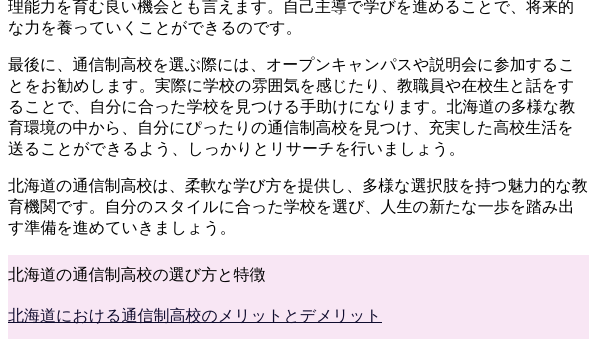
#include <cairo.h>
#include <math.h>
#include <stddef.h>


int main(void) {
    cairo_surface_t *surface = cairo_image_surface_create(CAIRO_FORMAT_RGB24, 597, 339);
    cairo_t *cr = cairo_create(surface);
    cairo_font_options_t *options = cairo_font_options_create();
    cairo_font_options_set_hint_metrics(options, CAIRO_HINT_METRICS_OFF);
    cairo_font_options_set_hint_style(options, CAIRO_HINT_STYLE_NONE);
    cairo_set_font_options(cr, options);
    cairo_set_miter_limit(cr, 4);
    cairo_set_source_rgb(cr, 1, 1, 1);
    cairo_paint(cr);
    cairo_select_font_face(cr, "WenQuanYi Zen Hei Medium", CAIRO_FONT_SLANT_NORMAL, CAIRO_FONT_WEIGHT_NORMAL);
    cairo_set_font_size(cr, 16);
    cairo_set_source_rgb(cr, 0, 0, 0);
    cairo_move_to(cr, 8, 12);
    cairo_show_text(cr, "理能力を育む良い機会とも言えます。自己主導で学びを進めることで、将来的");
    cairo_move_to(cr, 8, 33);
    cairo_show_text(cr, "な力を養っていくことができるのです。");
    cairo_move_to(cr, 8, 70);
    cairo_show_text(cr, "最後に、通信制高校を選ぶ際には、オープンキャンパスや説明会に参加するこ");
    cairo_move_to(cr, 8, 91);
    cairo_show_text(cr, "とをお勧めします。実際に学校の雰囲気を感じたり、教職員や在校生と話をす");
    cairo_move_to(cr, 8, 112);
    cairo_show_text(cr, "ることで、自分に合った学校を見つける手助けになります。北海道の多様な教");
    cairo_move_to(cr, 8, 133);
    cairo_show_text(cr, "育環境の中から、自分にぴったりの通信制高校を見つけ、充実した高校生活を");
    cairo_move_to(cr, 8, 154);
    cairo_show_text(cr, "送ることができるよう、しっかりとリサーチを行いましょう。");
    cairo_move_to(cr, 8, 191);
    cairo_show_text(cr, "北海道の通信制高校は、柔軟な学び方を提供し、多様な選択肢を持つ魅力的な教");
    cairo_move_to(cr, 8, 212);
    cairo_show_text(cr, "育機関です。自分のスタイルに合った学校を選び、人生の新たな一歩を踏み出");
    cairo_move_to(cr, 8, 233);
    cairo_show_text(cr, "す準備を進めていきましょう。");
    cairo_set_source_rgb(cr, 0.969, 0.902, 0.957);
    cairo_rectangle(cr, 8, 255, 581, 84);
    cairo_fill(cr);
    cairo_set_source_rgb(cr, 0, 0, 0);
    cairo_move_to(cr, 8, 280);
    cairo_show_text(cr, "北海道の通信制高校の選び方と特徴");
    cairo_set_source_rgb(cr, 0.063, 0.047, 0.18);
    cairo_rectangle(cr, 8, 322, 374, 1);
    cairo_fill(cr);
    cairo_move_to(cr, 8, 321);
    cairo_show_text(cr, "北海道における通信制高校のメリットとデメリット");
    cairo_surface_write_to_png(surface, "page.png");
    cairo_font_options_destroy(options);
    cairo_destroy(cr);
    cairo_surface_destroy(surface);
    return 0;
}
